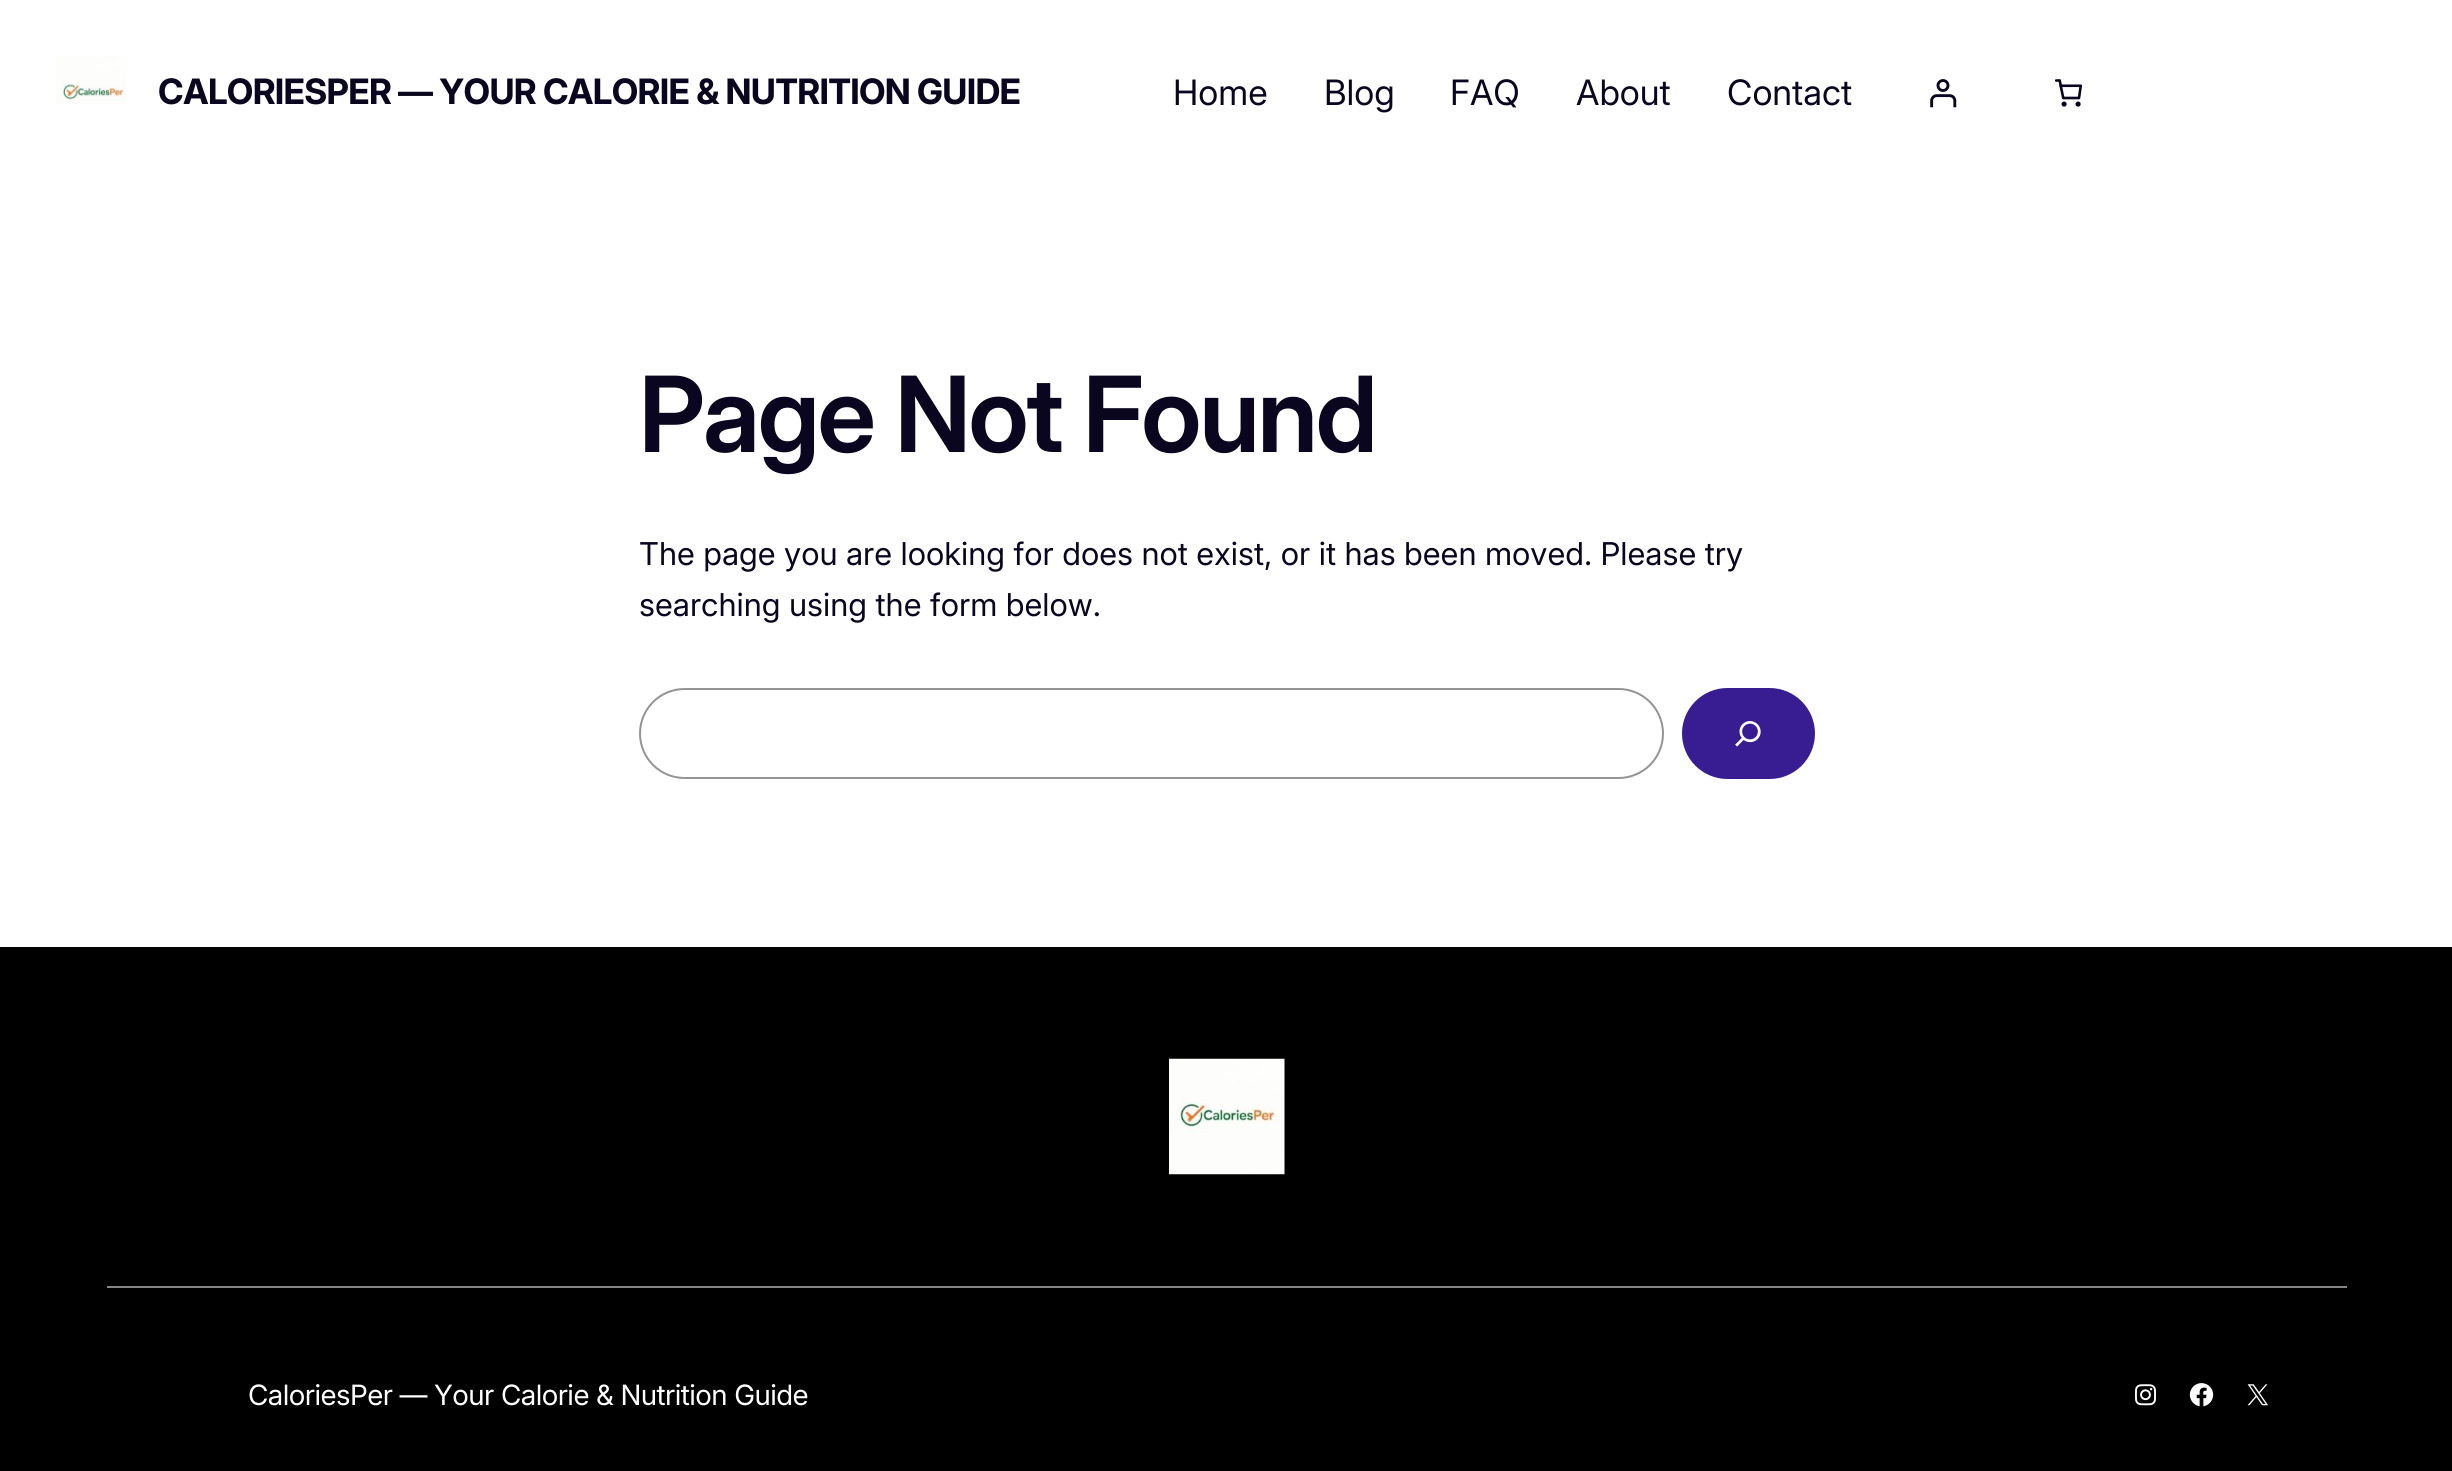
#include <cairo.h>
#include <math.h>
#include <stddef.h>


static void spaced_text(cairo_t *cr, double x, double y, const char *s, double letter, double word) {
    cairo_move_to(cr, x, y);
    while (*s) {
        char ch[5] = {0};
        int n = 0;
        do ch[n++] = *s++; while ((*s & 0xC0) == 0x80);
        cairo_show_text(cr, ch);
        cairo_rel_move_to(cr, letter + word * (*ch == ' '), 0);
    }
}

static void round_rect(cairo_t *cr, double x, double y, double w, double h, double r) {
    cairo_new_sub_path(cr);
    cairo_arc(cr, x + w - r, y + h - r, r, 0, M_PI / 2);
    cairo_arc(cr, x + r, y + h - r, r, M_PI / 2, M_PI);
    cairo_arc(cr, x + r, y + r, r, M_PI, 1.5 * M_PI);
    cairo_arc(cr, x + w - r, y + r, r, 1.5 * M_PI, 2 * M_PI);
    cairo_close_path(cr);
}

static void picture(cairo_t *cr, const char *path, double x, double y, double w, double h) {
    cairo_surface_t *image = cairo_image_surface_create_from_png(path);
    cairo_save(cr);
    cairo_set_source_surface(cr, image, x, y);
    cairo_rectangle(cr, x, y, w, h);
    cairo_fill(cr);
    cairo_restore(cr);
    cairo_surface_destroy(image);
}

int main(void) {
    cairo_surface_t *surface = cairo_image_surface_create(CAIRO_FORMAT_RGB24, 2452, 1471);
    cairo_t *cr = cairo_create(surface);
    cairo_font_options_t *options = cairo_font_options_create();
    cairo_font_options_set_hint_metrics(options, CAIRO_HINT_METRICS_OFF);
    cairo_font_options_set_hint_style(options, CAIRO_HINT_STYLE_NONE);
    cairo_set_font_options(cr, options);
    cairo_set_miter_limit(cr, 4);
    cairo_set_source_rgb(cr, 1, 1, 1);
    cairo_paint(cr);
    picture(cr, "img1.png", 56, 56, 71, 48);
    cairo_select_font_face(cr, "Inter", CAIRO_FONT_SLANT_NORMAL, CAIRO_FONT_WEIGHT_BOLD);
    cairo_set_font_size(cr, 35);
    cairo_set_source_rgb(cr, 0.043, 0.024, 0.125);
    spaced_text(cr, 158, 104, "CALORIESPER — YOUR CALORIE & NUTRITION GUIDE", -0.7, 0);
    cairo_select_font_face(cr, "Inter", CAIRO_FONT_SLANT_NORMAL, CAIRO_FONT_WEIGHT_NORMAL);
    cairo_move_to(cr, 1173, 105);
    cairo_show_text(cr, "Home");
    cairo_move_to(cr, 1324, 105);
    cairo_show_text(cr, "Blog");
    cairo_move_to(cr, 1450, 105);
    cairo_show_text(cr, "FAQ");
    cairo_move_to(cr, 1576, 105);
    cairo_show_text(cr, "About");
    cairo_move_to(cr, 1727, 105);
    cairo_show_text(cr, "Contact");
    picture(cr, "img2.png", 1930, 79, 27, 29);
    picture(cr, "img3.png", 2055, 79, 27, 28);
    cairo_select_font_face(cr, "Inter SemiBold", CAIRO_FONT_SLANT_NORMAL, CAIRO_FONT_WEIGHT_NORMAL);
    cairo_set_font_size(cr, 105);
    spaced_text(cr, 639, 452, "Page Not Found", -2.1, 0);
    cairo_select_font_face(cr, "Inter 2", CAIRO_FONT_SLANT_NORMAL, CAIRO_FONT_WEIGHT_NORMAL);
    cairo_set_font_size(cr, 31.5);
    cairo_move_to(cr, 639, 565);
    cairo_show_text(cr, "The page you are looking for does not exist, or it has been moved. Please try");
    cairo_move_to(cr, 639, 616);
    cairo_show_text(cr, "searching using the form below.");
    round_rect(cr, 640, 689, 1023, 89, 44.5);
    cairo_set_source_rgb(cr, 0.58, 0.58, 0.58);
    cairo_stroke(cr);
    cairo_set_source_rgb(cr, 0.22, 0.114, 0.573);
    round_rect(cr, 1682, 688, 133, 91, 45.5);
    cairo_fill(cr);
    picture(cr, "img4.png", 1735, 721, 26, 26);
    cairo_set_source_rgb(cr, 0, 0, 0);
    cairo_rectangle(cr, 0, 947, 2452, 524);
    cairo_fill(cr);
    picture(cr, "img5.png", 1169, 1058, 116, 117);
    cairo_set_source_rgb(cr, 0.522, 0.522, 0.522);
    cairo_rectangle(cr, 107, 1286, 2240, 2);
    cairo_fill(cr);
    cairo_select_font_face(cr, "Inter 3", CAIRO_FONT_SLANT_NORMAL, CAIRO_FONT_WEIGHT_NORMAL);
    cairo_set_font_size(cr, 28);
    cairo_set_source_rgb(cr, 1, 1, 1);
    spaced_text(cr, 248, 1405, "CaloriesPer — Your Calorie & Nutrition Guide", -0.55, 0);
    picture(cr, "img6.png", 2135, 1384, 21, 22);
    picture(cr, "img7.png", 2189, 1383, 25, 24);
    picture(cr, "img8.png", 2247, 1384, 21, 22);
    cairo_surface_write_to_png(surface, "page.png");
    cairo_font_options_destroy(options);
    cairo_destroy(cr);
    cairo_surface_destroy(surface);
    return 0;
}
